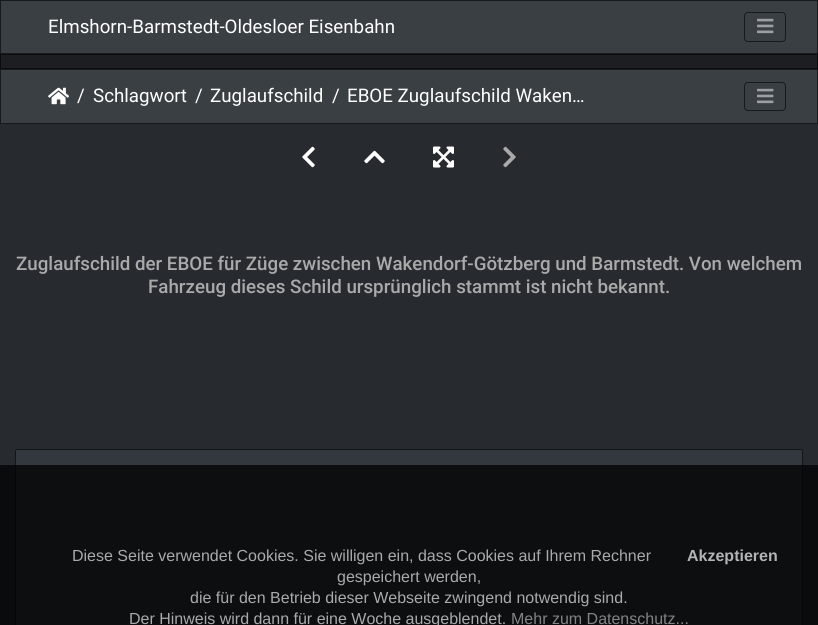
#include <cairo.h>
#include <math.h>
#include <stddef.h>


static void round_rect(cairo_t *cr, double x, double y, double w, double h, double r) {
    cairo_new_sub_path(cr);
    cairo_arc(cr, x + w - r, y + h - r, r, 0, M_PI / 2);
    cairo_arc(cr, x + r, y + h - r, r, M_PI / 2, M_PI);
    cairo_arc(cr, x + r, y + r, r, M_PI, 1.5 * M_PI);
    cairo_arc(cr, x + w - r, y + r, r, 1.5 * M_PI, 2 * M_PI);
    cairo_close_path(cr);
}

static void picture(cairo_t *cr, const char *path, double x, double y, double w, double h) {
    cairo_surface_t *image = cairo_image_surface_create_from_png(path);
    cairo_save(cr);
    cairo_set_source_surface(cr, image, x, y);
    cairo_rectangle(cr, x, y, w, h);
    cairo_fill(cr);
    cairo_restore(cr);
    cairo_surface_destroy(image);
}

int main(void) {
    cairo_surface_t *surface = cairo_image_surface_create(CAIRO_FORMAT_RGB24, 818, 625);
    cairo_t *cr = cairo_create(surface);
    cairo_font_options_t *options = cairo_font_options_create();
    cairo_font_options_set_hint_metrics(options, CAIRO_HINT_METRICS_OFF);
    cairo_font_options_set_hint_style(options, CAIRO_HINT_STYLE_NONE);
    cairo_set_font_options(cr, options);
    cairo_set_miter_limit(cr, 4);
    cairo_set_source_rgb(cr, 0.153, 0.169, 0.188);
    cairo_paint(cr);
    cairo_set_source_rgb(cr, 0.227, 0.247, 0.267);
    cairo_rectangle(cr, 0.5, 0.5, 817, 53);
    cairo_fill_preserve(cr);
    cairo_set_source_rgb(cr, 0.09, 0.098, 0.106);
    cairo_set_line_width(cr, 1);
    cairo_stroke(cr);
    cairo_select_font_face(cr, "Roboto", CAIRO_FONT_SLANT_NORMAL, CAIRO_FONT_WEIGHT_NORMAL);
    cairo_set_font_size(cr, 18.75);
    cairo_set_source_rgb(cr, 1, 1, 1);
    cairo_move_to(cr, 48, 33);
    cairo_show_text(cr, "Elmshorn-Barmstedt-Oldesloer Eisenbahn");
    round_rect(cr, 744.5, 12.5, 41, 29, 3.5);
    cairo_set_source_rgb(cr, 0.09, 0.098, 0.106);
    cairo_stroke(cr);
    picture(cr, "img1.png", 757, 18, 17, 16);
    cairo_set_source_rgb(cr, 0.11, 0.118, 0.133);
    cairo_rectangle(cr, 0.5, 54.5, 817, 14);
    cairo_fill_preserve(cr);
    cairo_set_source_rgb(cr, 0.043, 0.047, 0.055);
    cairo_stroke(cr);
    cairo_set_source_rgb(cr, 0.227, 0.247, 0.267);
    cairo_rectangle(cr, 0.5, 69.5, 817, 54);
    cairo_fill_preserve(cr);
    cairo_set_source_rgb(cr, 0.09, 0.098, 0.106);
    cairo_stroke(cr);
    picture(cr, "img2.png", 48, 87, 21, 18);
    cairo_set_source_rgb(cr, 1, 1, 1);
    cairo_move_to(cr, 77, 102);
    cairo_show_text(cr, "/");
    cairo_move_to(cr, 93, 102);
    cairo_show_text(cr, "Schlagwort");
    cairo_move_to(cr, 195, 102);
    cairo_show_text(cr, "/");
    cairo_move_to(cr, 210, 102);
    cairo_show_text(cr, "Zuglaufschild");
    cairo_move_to(cr, 332, 102);
    cairo_show_text(cr, "/");
    cairo_move_to(cr, 347, 102);
    cairo_show_text(cr, "EBOE Zuglaufschild Waken…");
    round_rect(cr, 744.5, 82.5, 41, 28, 3.5);
    cairo_set_source_rgb(cr, 0.09, 0.098, 0.106);
    cairo_stroke(cr);
    picture(cr, "img1.png", 757, 88, 17, 16);
    picture(cr, "img3.png", 302, 146, 13, 22);
    picture(cr, "img4.png", 364, 150, 21, 14);
    picture(cr, "img5.png", 433, 146, 21, 22);
    picture(cr, "img6.png", 503, 146, 13, 22);
    cairo_select_font_face(cr, "Roboto Medium", CAIRO_FONT_SLANT_NORMAL, CAIRO_FONT_WEIGHT_NORMAL);
    cairo_set_source_rgb(cr, 0.667, 0.667, 0.667);
    cairo_move_to(cr, 16, 270);
    cairo_show_text(cr, "Zuglaufschild der EBOE für Züge zwischen Wakendorf-Götzberg und Barmstedt. Von welchem");
    cairo_move_to(cr, 148, 293);
    cairo_show_text(cr, "Fahrzeug dieses Schild ursprünglich stammt ist nicht bekannt.");
    cairo_set_source_rgb(cr, 0.196, 0.22, 0.243);
    round_rect(cr, 15.5, 449.5, 787, 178, 1.5);
    cairo_fill_preserve(cr);
    cairo_set_source_rgb(cr, 0.078, 0.086, 0.098);
    cairo_stroke(cr);
    cairo_set_source_rgba(cr, 0, 0, 0, 0.75);
    cairo_rectangle(cr, 0, 465, 818, 160);
    cairo_fill(cr);
    cairo_select_font_face(cr, "Liberation Sans", CAIRO_FONT_SLANT_NORMAL, CAIRO_FONT_WEIGHT_NORMAL);
    cairo_set_font_size(cr, 16);
    cairo_set_source_rgb(cr, 0.667, 0.667, 0.667);
    cairo_move_to(cr, 72, 561);
    cairo_show_text(cr, "Diese Seite verwendet Cookies. Sie willigen ein, dass Cookies auf Ihrem Rechner");
    cairo_select_font_face(cr, "Liberation Sans", CAIRO_FONT_SLANT_NORMAL, CAIRO_FONT_WEIGHT_BOLD);
    cairo_set_source_rgb(cr, 0.698, 0.706, 0.71);
    cairo_move_to(cr, 687, 561);
    cairo_show_text(cr, "Akzeptieren");
    cairo_select_font_face(cr, "Liberation Sans", CAIRO_FONT_SLANT_NORMAL, CAIRO_FONT_WEIGHT_NORMAL);
    cairo_set_source_rgb(cr, 0.667, 0.667, 0.667);
    cairo_move_to(cr, 337, 582);
    cairo_show_text(cr, "gespeichert werden,");
    cairo_move_to(cr, 190, 603);
    cairo_show_text(cr, "die für den Betrieb dieser Webseite zwingend notwendig sind.");
    cairo_move_to(cr, 129, 624);
    cairo_show_text(cr, "Der Hinweis wird dann für eine Woche ausgeblendet.");
    cairo_set_source_rgb(cr, 0.514, 0.514, 0.514);
    cairo_move_to(cr, 511, 624);
    cairo_show_text(cr, "Mehr zum Datenschutz...");
    cairo_surface_write_to_png(surface, "page.png");
    cairo_font_options_destroy(options);
    cairo_destroy(cr);
    cairo_surface_destroy(surface);
    return 0;
}
